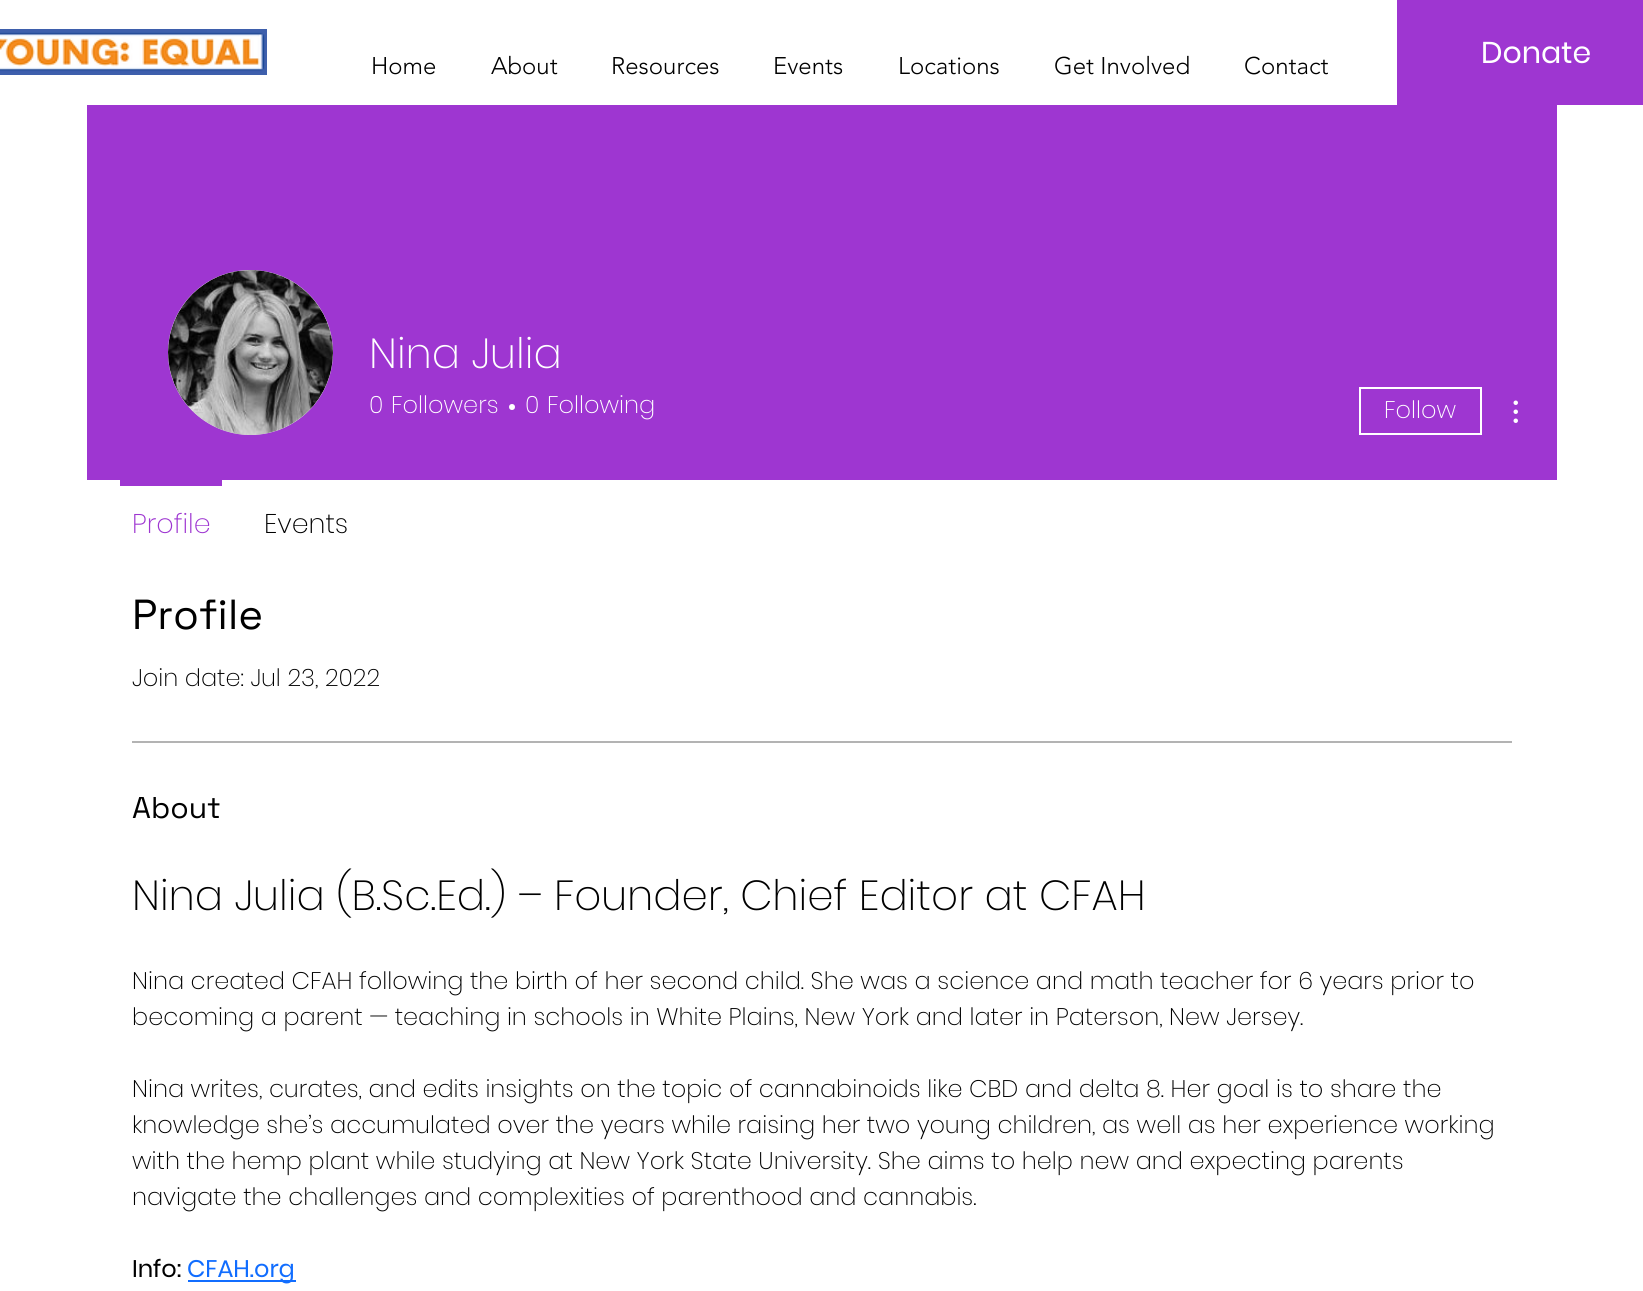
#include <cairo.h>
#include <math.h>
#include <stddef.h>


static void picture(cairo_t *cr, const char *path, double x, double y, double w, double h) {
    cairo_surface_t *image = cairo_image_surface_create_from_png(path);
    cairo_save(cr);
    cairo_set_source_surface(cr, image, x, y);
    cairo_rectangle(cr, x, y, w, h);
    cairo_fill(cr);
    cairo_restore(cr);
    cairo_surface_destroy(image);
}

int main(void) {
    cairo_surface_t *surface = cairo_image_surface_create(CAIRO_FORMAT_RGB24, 1643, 1291);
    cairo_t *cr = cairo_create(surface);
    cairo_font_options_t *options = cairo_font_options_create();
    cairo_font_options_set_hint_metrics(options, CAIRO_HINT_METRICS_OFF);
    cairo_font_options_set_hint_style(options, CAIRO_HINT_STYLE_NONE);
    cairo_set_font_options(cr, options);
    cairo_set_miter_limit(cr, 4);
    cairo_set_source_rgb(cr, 1, 1, 1);
    cairo_paint(cr);
    picture(cr, "img1.png", 0, 29, 267, 46);
    cairo_select_font_face(cr, "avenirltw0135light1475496 Light", CAIRO_FONT_SLANT_NORMAL, CAIRO_FONT_WEIGHT_NORMAL);
    cairo_set_font_size(cr, 24);
    cairo_set_source_rgb(cr, 0, 0, 0);
    cairo_move_to(cr, 371, 74);
    cairo_show_text(cr, "Home");
    cairo_move_to(cr, 491, 74);
    cairo_show_text(cr, "About");
    cairo_move_to(cr, 611, 74);
    cairo_show_text(cr, "Resources");
    cairo_move_to(cr, 773, 74);
    cairo_show_text(cr, "Events");
    cairo_move_to(cr, 898, 74);
    cairo_show_text(cr, "Locations");
    cairo_move_to(cr, 1054, 74);
    cairo_show_text(cr, "Get Involved");
    cairo_move_to(cr, 1244, 74);
    cairo_show_text(cr, "Contact");
    cairo_set_source_rgb(cr, 0.62, 0.212, 0.82);
    cairo_rectangle(cr, 1397, 0, 246, 105);
    cairo_fill(cr);
    cairo_select_font_face(cr, "Poppins", CAIRO_FONT_SLANT_NORMAL, CAIRO_FONT_WEIGHT_NORMAL);
    cairo_set_font_size(cr, 30);
    cairo_set_source_rgb(cr, 1, 1, 1);
    cairo_move_to(cr, 1481, 63);
    cairo_show_text(cr, "Donate");
    cairo_set_source_rgb(cr, 0.62, 0.212, 0.82);
    cairo_rectangle(cr, 87, 105, 1470, 375);
    cairo_fill(cr);
    cairo_set_source_rgb(cr, 0.847, 0.847, 0.847);
    cairo_arc(cr, 250.5, 352.5, 82.5, 0, 2 * M_PI);
    cairo_fill(cr);
    picture(cr, "img2.png", 168, 270, 165, 165);
    cairo_select_font_face(cr, "Poppins ExtraLight", CAIRO_FONT_SLANT_NORMAL, CAIRO_FONT_WEIGHT_NORMAL);
    cairo_set_font_size(cr, 42);
    cairo_set_source_rgb(cr, 1, 1, 1);
    cairo_move_to(cr, 369, 368);
    cairo_show_text(cr, "Nina Julia");
    cairo_set_font_size(cr, 24);
    cairo_move_to(cr, 369, 413);
    cairo_show_text(cr, "0");
    cairo_move_to(cr, 391, 413);
    cairo_show_text(cr, "Followers");
    cairo_new_path(cr);
    cairo_arc(cr, 512, 407, 3, 0, 2 * M_PI);
    cairo_fill(cr);
    cairo_move_to(cr, 525, 413);
    cairo_show_text(cr, "0");
    cairo_move_to(cr, 547, 413);
    cairo_show_text(cr, "Following");
    cairo_rectangle(cr, 1360, 388, 121, 46);
    cairo_stroke(cr);
    cairo_move_to(cr, 1384, 418);
    cairo_show_text(cr, "Follow");
    picture(cr, "img3.png", 1513, 400, 5, 23);
    cairo_set_source_rgb(cr, 0.62, 0.212, 0.82);
    cairo_rectangle(cr, 120, 480, 102, 6);
    cairo_fill(cr);
    cairo_set_font_size(cr, 27);
    cairo_move_to(cr, 132, 533);
    cairo_show_text(cr, "Profile");
    cairo_set_source_rgb(cr, 0, 0, 0);
    cairo_move_to(cr, 264, 533);
    cairo_show_text(cr, "Events");
    cairo_select_font_face(cr, "Space Grotesk", CAIRO_FONT_SLANT_NORMAL, CAIRO_FONT_WEIGHT_NORMAL);
    cairo_set_font_size(cr, 42);
    cairo_move_to(cr, 132, 629);
    cairo_show_text(cr, "Profile");
    cairo_select_font_face(cr, "Poppins ExtraLight", CAIRO_FONT_SLANT_NORMAL, CAIRO_FONT_WEIGHT_NORMAL);
    cairo_set_font_size(cr, 24);
    cairo_move_to(cr, 132, 686);
    cairo_show_text(cr, "Join date: Jul 23, 2022");
    cairo_set_source_rgb(cr, 0.702, 0.702, 0.702);
    cairo_rectangle(cr, 132, 741, 1380, 2);
    cairo_fill(cr);
    cairo_select_font_face(cr, "Space Grotesk", CAIRO_FONT_SLANT_NORMAL, CAIRO_FONT_WEIGHT_NORMAL);
    cairo_set_font_size(cr, 30);
    cairo_set_source_rgb(cr, 0, 0, 0);
    cairo_move_to(cr, 132, 818);
    cairo_show_text(cr, "About");
    cairo_select_font_face(cr, "Poppins ExtraLight", CAIRO_FONT_SLANT_NORMAL, CAIRO_FONT_WEIGHT_NORMAL);
    cairo_set_font_size(cr, 42);
    cairo_move_to(cr, 132, 910);
    cairo_show_text(cr, "Nina Julia (B.Sc.Ed.) – Founder, Chief Editor at CFAH");
    cairo_set_font_size(cr, 24);
    cairo_move_to(cr, 132, 989);
    cairo_show_text(cr, "Nina created CFAH following the birth of her second child. She was a science and math teacher for 6 years prior to");
    cairo_move_to(cr, 132, 1025);
    cairo_show_text(cr, "becoming a parent — teaching in schools in White Plains, New York and later in Paterson, New Jersey.");
    cairo_move_to(cr, 132, 1097);
    cairo_show_text(cr, "Nina writes, curates, and edits insights on the topic of cannabinoids like CBD and delta 8. Her goal is to share the");
    cairo_move_to(cr, 132, 1133);
    cairo_show_text(cr, "knowledge she’s accumulated over the years while raising her two young children, as well as her experience working");
    cairo_move_to(cr, 132, 1169);
    cairo_show_text(cr, "with the hemp plant while studying at New York State University. She aims to help new and expecting parents");
    cairo_move_to(cr, 132, 1205);
    cairo_show_text(cr, "navigate the challenges and complexities of parenthood and cannabis.");
    cairo_select_font_face(cr, "Poppins", CAIRO_FONT_SLANT_NORMAL, CAIRO_FONT_WEIGHT_NORMAL);
    cairo_move_to(cr, 132, 1277);
    cairo_show_text(cr, "Info:");
    cairo_set_source_rgb(cr, 0.067, 0.427, 1);
    cairo_rectangle(cr, 188, 1280, 108, 2);
    cairo_fill(cr);
    cairo_move_to(cr, 187, 1277);
    cairo_show_text(cr, "CFAH.org");
    cairo_surface_write_to_png(surface, "page.png");
    cairo_font_options_destroy(options);
    cairo_destroy(cr);
    cairo_surface_destroy(surface);
    return 0;
}
